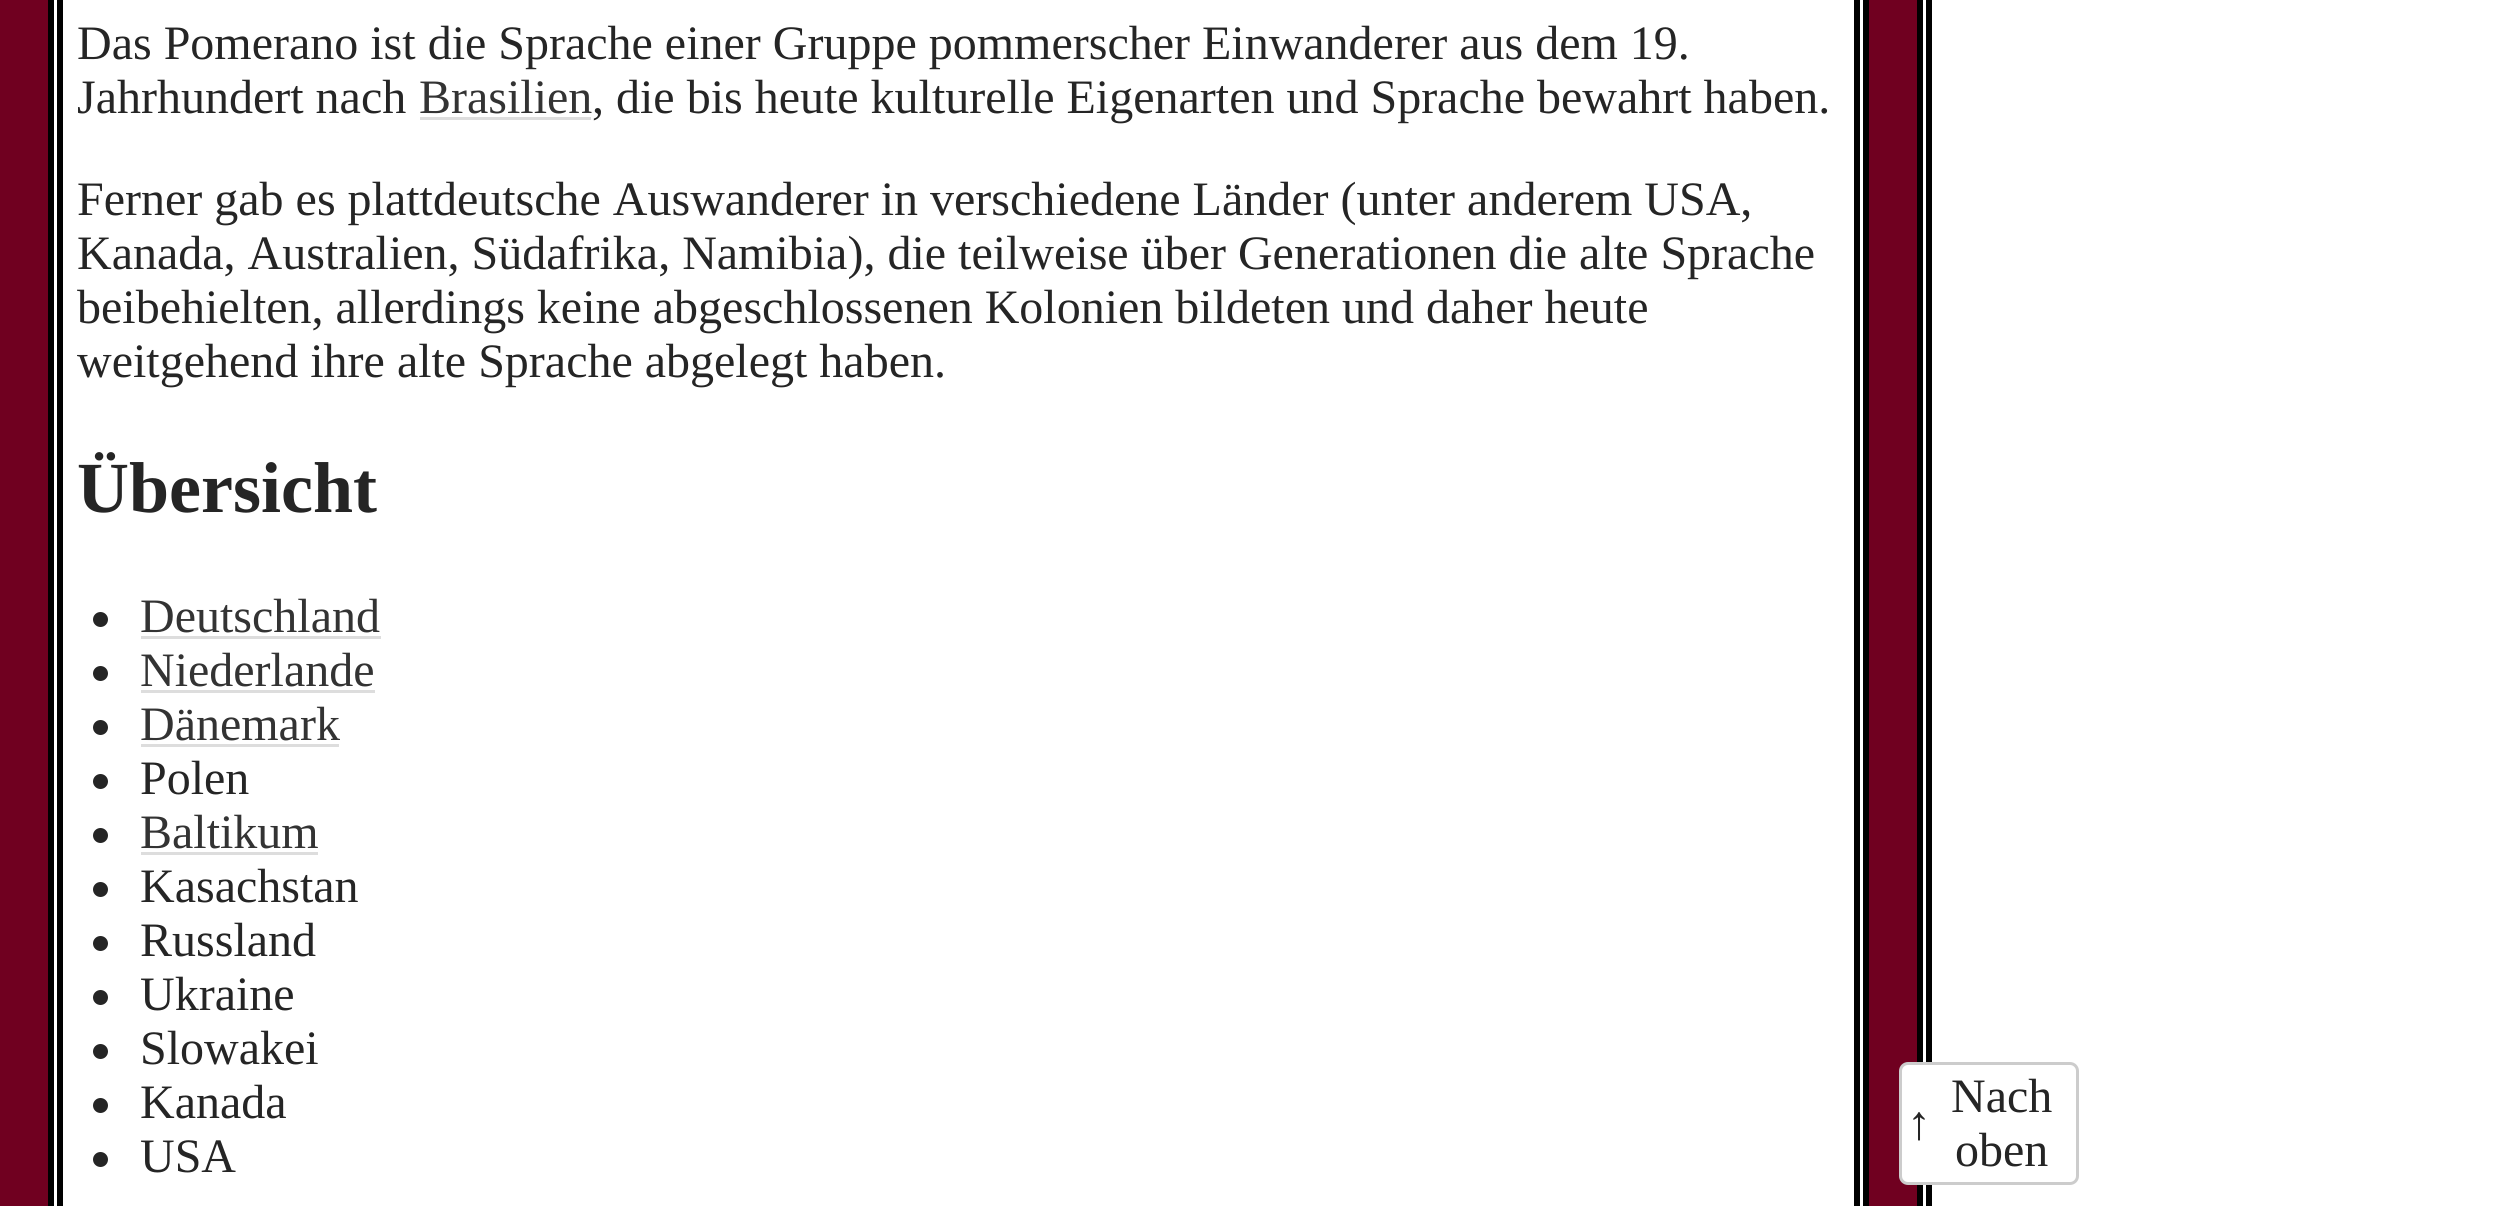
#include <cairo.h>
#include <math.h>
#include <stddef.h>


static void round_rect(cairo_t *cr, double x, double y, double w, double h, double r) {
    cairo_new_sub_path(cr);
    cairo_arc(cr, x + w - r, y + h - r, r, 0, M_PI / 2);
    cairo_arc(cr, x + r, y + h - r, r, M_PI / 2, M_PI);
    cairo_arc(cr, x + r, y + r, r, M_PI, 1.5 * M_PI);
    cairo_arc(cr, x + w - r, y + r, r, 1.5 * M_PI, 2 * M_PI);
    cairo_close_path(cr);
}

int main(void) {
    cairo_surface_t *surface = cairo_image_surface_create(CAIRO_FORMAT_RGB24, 2493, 1206);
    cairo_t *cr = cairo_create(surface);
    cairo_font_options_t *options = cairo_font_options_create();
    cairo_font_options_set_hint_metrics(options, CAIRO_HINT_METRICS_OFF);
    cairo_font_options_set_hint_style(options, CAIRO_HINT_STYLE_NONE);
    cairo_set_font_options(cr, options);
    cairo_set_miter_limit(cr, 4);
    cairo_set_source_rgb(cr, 0.439, 0, 0.125);
    cairo_paint(cr);
    cairo_set_source_rgb(cr, 1, 1, 1);
    cairo_rectangle(cr, 51, -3, 1815, 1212);
    cairo_fill_preserve(cr);
    cairo_set_source_rgb(cr, 0, 0, 0);
    cairo_set_line_width(cr, 6);
    cairo_stroke(cr);
    cairo_rectangle(cr, 60, -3, 1797, 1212);
    cairo_stroke(cr);
    cairo_select_font_face(cr, "Liberation Serif", CAIRO_FONT_SLANT_NORMAL, CAIRO_FONT_WEIGHT_NORMAL);
    cairo_set_font_size(cr, 48);
    cairo_set_source_rgb(cr, 0.145, 0.145, 0.145);
    cairo_move_to(cr, 77, 59);
    cairo_show_text(cr, "Das Pomerano ist die Sprache einer Gruppe pommerscher Einwanderer aus dem 19.");
    cairo_move_to(cr, 77, 113);
    cairo_show_text(cr, "Jahrhundert nach");
    cairo_set_source_rgb(cr, 0.2, 0.2, 0.2);
    cairo_move_to(cr, 419, 113);
    cairo_show_text(cr, "Brasilien");
    cairo_set_source_rgb(cr, 0.867, 0.867, 0.867);
    cairo_rectangle(cr, 420, 117, 171, 3);
    cairo_fill(cr);
    cairo_set_source_rgb(cr, 0.145, 0.145, 0.145);
    cairo_move_to(cr, 592, 113);
    cairo_show_text(cr, ", die bis heute kulturelle Eigenarten und Sprache bewahrt haben.");
    cairo_move_to(cr, 77, 215);
    cairo_show_text(cr, "Ferner gab es plattdeutsche Auswanderer in verschiedene Länder (unter anderem USA,");
    cairo_move_to(cr, 77, 269);
    cairo_show_text(cr, "Kanada, Australien, Südafrika, Namibia), die teilweise über Generationen die alte Sprache");
    cairo_move_to(cr, 77, 323);
    cairo_show_text(cr, "beibehielten, allerdings keine abgeschlossenen Kolonien bildeten und daher heute");
    cairo_move_to(cr, 77, 377);
    cairo_show_text(cr, "weitgehend ihre alte Sprache abgelegt haben.");
    cairo_select_font_face(cr, "Liberation Serif", CAIRO_FONT_SLANT_NORMAL, CAIRO_FONT_WEIGHT_BOLD);
    cairo_set_font_size(cr, 72);
    cairo_move_to(cr, 77, 512);
    cairo_show_text(cr, "Übersicht");
    cairo_new_path(cr);
    cairo_arc(cr, 100.5, 619.5, 7.5, 0, 2 * M_PI);
    cairo_fill(cr);
    cairo_select_font_face(cr, "Liberation Serif", CAIRO_FONT_SLANT_NORMAL, CAIRO_FONT_WEIGHT_NORMAL);
    cairo_set_font_size(cr, 48);
    cairo_set_source_rgb(cr, 0.2, 0.2, 0.2);
    cairo_move_to(cr, 140, 632);
    cairo_show_text(cr, "Deutschland");
    cairo_set_source_rgb(cr, 0.867, 0.867, 0.867);
    cairo_rectangle(cr, 141, 636, 240, 3);
    cairo_fill(cr);
    cairo_set_source_rgb(cr, 0.145, 0.145, 0.145);
    cairo_arc(cr, 100.5, 673.5, 7.5, 0, 2 * M_PI);
    cairo_fill(cr);
    cairo_set_source_rgb(cr, 0.2, 0.2, 0.2);
    cairo_move_to(cr, 140, 686);
    cairo_show_text(cr, "Niederlande");
    cairo_set_source_rgb(cr, 0.867, 0.867, 0.867);
    cairo_rectangle(cr, 141, 690, 234, 3);
    cairo_fill(cr);
    cairo_set_source_rgb(cr, 0.145, 0.145, 0.145);
    cairo_arc(cr, 100.5, 727.5, 7.5, 0, 2 * M_PI);
    cairo_fill(cr);
    cairo_set_source_rgb(cr, 0.2, 0.2, 0.2);
    cairo_move_to(cr, 140, 740);
    cairo_show_text(cr, "Dänemark");
    cairo_set_source_rgb(cr, 0.867, 0.867, 0.867);
    cairo_rectangle(cr, 141, 744, 198, 3);
    cairo_fill(cr);
    cairo_set_source_rgb(cr, 0.145, 0.145, 0.145);
    cairo_arc(cr, 100.5, 781.5, 7.5, 0, 2 * M_PI);
    cairo_fill(cr);
    cairo_move_to(cr, 140, 794);
    cairo_show_text(cr, "Polen");
    cairo_new_path(cr);
    cairo_arc(cr, 100.5, 835.5, 7.5, 0, 2 * M_PI);
    cairo_fill(cr);
    cairo_set_source_rgb(cr, 0.2, 0.2, 0.2);
    cairo_move_to(cr, 140, 848);
    cairo_show_text(cr, "Baltikum");
    cairo_set_source_rgb(cr, 0.867, 0.867, 0.867);
    cairo_rectangle(cr, 141, 852, 177, 3);
    cairo_fill(cr);
    cairo_set_source_rgb(cr, 0.145, 0.145, 0.145);
    cairo_arc(cr, 100.5, 889.5, 7.5, 0, 2 * M_PI);
    cairo_fill(cr);
    cairo_move_to(cr, 140, 902);
    cairo_show_text(cr, "Kasachstan");
    cairo_new_path(cr);
    cairo_arc(cr, 100.5, 943.5, 7.5, 0, 2 * M_PI);
    cairo_fill(cr);
    cairo_move_to(cr, 140, 956);
    cairo_show_text(cr, "Russland");
    cairo_new_path(cr);
    cairo_arc(cr, 100.5, 997.5, 7.5, 0, 2 * M_PI);
    cairo_fill(cr);
    cairo_move_to(cr, 140, 1010);
    cairo_show_text(cr, "Ukraine");
    cairo_new_path(cr);
    cairo_arc(cr, 100.5, 1051.5, 7.5, 0, 2 * M_PI);
    cairo_fill(cr);
    cairo_move_to(cr, 140, 1064);
    cairo_show_text(cr, "Slowakei");
    cairo_new_path(cr);
    cairo_arc(cr, 100.5, 1105.5, 7.5, 0, 2 * M_PI);
    cairo_fill(cr);
    cairo_move_to(cr, 140, 1118);
    cairo_show_text(cr, "Kanada");
    cairo_new_path(cr);
    cairo_arc(cr, 100.5, 1159.5, 7.5, 0, 2 * M_PI);
    cairo_fill(cr);
    cairo_move_to(cr, 140, 1172);
    cairo_show_text(cr, "USA");
    cairo_set_source_rgb(cr, 1, 1, 1);
    cairo_rectangle(cr, 1923, 0, 570, 1206);
    cairo_fill(cr);
    cairo_set_source_rgb(cr, 0, 0, 0);
    cairo_rectangle(cr, 1917, 0, 6, 1206);
    cairo_fill(cr);
    cairo_rectangle(cr, 1926, 0, 6, 1206);
    cairo_fill(cr);
    cairo_set_source_rgb(cr, 1, 1, 1);
    round_rect(cr, 1900.5, 1063.5, 177, 120, 7.5);
    cairo_fill_preserve(cr);
    cairo_set_source_rgb(cr, 0.8, 0.8, 0.8);
    cairo_set_line_width(cr, 3);
    cairo_stroke(cr);
    cairo_set_source_rgb(cr, 0.145, 0.145, 0.145);
    cairo_move_to(cr, 1907, 1139);
    cairo_show_text(cr, "↑");
    cairo_move_to(cr, 1951, 1112);
    cairo_show_text(cr, "Nach");
    cairo_move_to(cr, 1955, 1166);
    cairo_show_text(cr, "oben");
    cairo_surface_write_to_png(surface, "page.png");
    cairo_font_options_destroy(options);
    cairo_destroy(cr);
    cairo_surface_destroy(surface);
    return 0;
}
